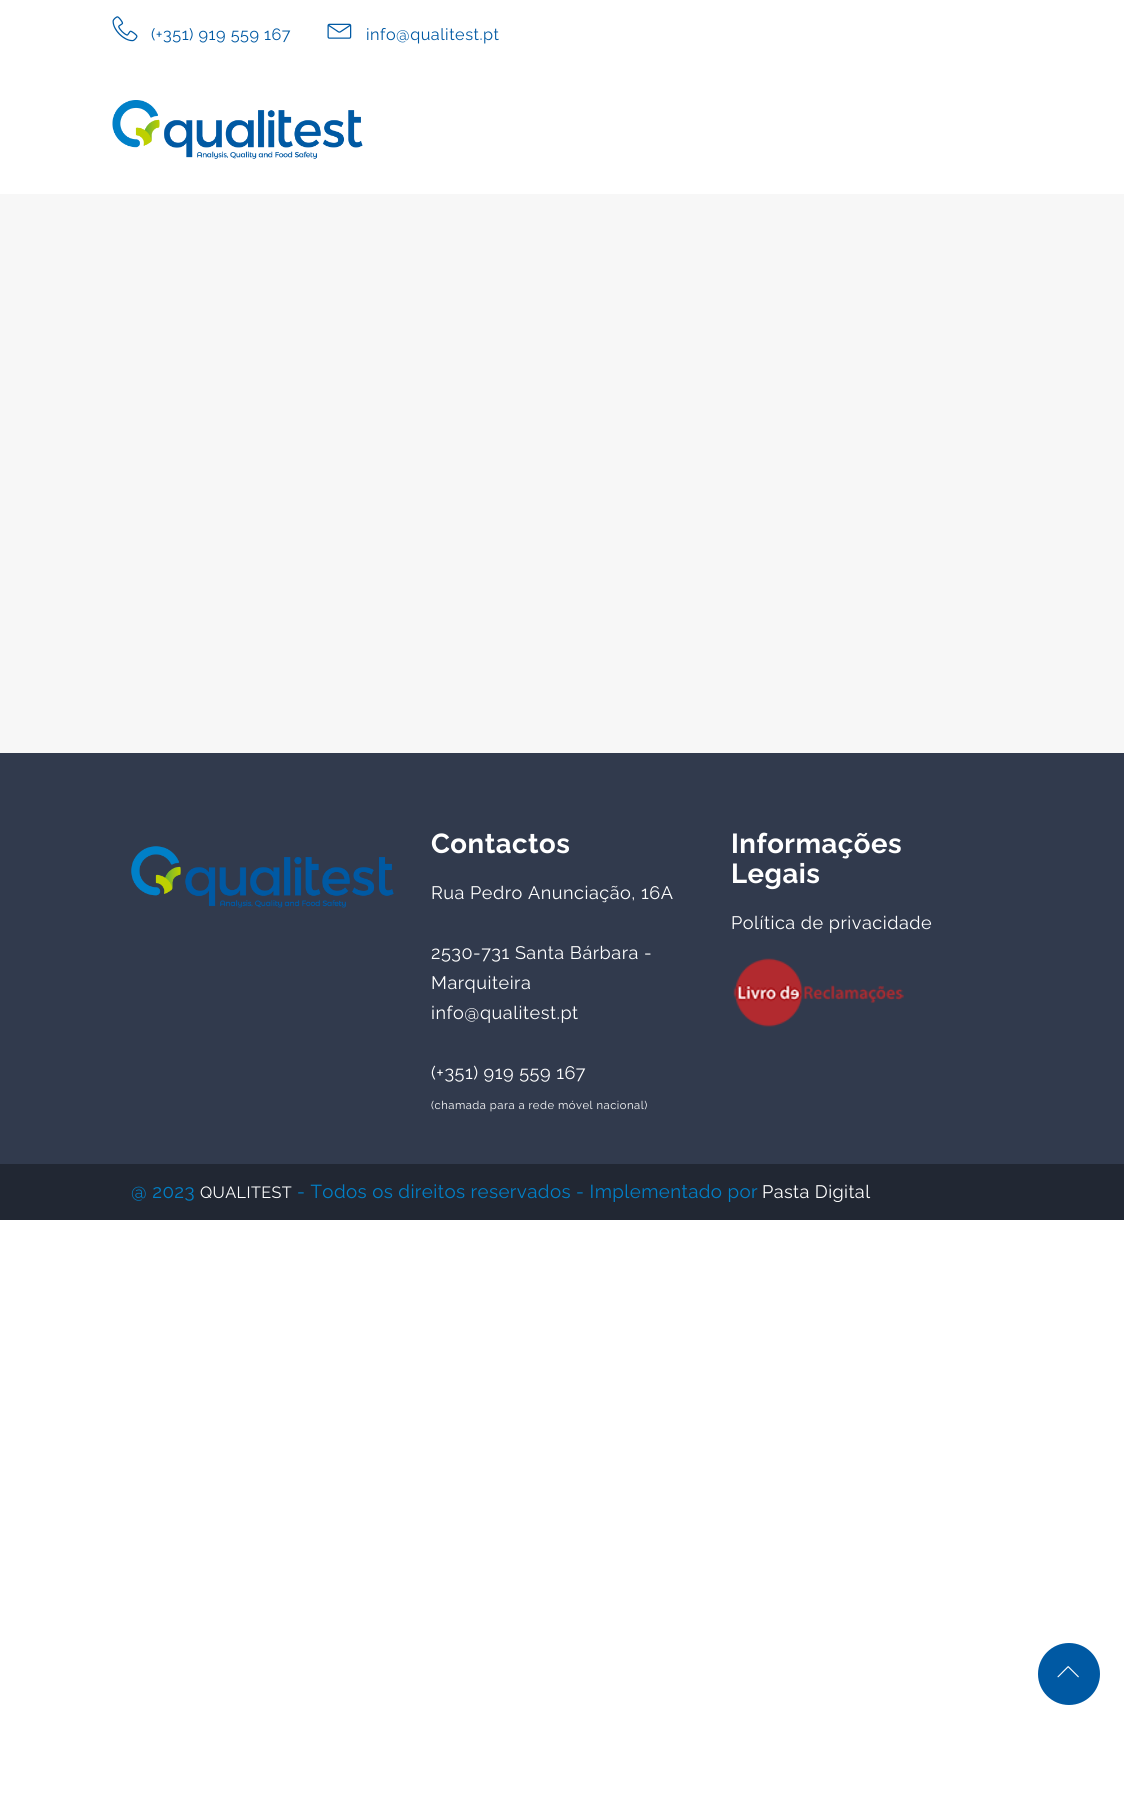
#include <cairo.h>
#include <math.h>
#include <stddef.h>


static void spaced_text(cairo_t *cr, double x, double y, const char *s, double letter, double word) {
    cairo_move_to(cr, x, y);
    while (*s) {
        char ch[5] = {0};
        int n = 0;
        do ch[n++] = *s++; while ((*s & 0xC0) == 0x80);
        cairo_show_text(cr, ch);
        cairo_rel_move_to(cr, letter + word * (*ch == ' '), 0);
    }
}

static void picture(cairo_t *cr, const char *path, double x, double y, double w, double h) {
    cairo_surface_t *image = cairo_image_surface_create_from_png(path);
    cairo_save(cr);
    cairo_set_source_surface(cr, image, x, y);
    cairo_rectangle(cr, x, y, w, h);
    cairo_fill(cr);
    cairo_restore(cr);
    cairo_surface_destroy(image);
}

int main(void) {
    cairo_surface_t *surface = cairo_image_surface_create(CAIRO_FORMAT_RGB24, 1124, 1805);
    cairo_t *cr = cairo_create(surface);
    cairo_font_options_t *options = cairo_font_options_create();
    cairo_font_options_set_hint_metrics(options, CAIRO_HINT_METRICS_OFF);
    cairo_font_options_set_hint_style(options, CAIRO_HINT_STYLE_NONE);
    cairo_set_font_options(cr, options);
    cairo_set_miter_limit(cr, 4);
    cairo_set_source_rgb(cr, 1, 1, 1);
    cairo_paint(cr);
    picture(cr, "img1.png", 112, 16, 26, 26);
    cairo_select_font_face(cr, "Raleway", CAIRO_FONT_SLANT_NORMAL, CAIRO_FONT_WEIGHT_NORMAL);
    cairo_set_font_size(cr, 16.25);
    cairo_set_source_rgb(cr, 0, 0.349, 0.639);
    spaced_text(cr, 151, 40, "(+351) 919 559 167", 0.5, 0);
    picture(cr, "img2.png", 327, 23, 25, 16);
    spaced_text(cr, 366, 40, "info@qualitest.pt", 0.5, 0);
    picture(cr, "img3.png", 112, 100, 251, 59);
    cairo_set_source_rgb(cr, 0.965, 0.965, 0.965);
    cairo_rectangle(cr, 0, 194, 1124, 559);
    cairo_fill(cr);
    cairo_set_source_rgb(cr, 0.192, 0.227, 0.302);
    cairo_rectangle(cr, 0, 753, 1124, 411);
    cairo_fill(cr);
    picture(cr, "img4.png", 131, 846, 263, 62);
    cairo_select_font_face(cr, "Raleway", CAIRO_FONT_SLANT_NORMAL, CAIRO_FONT_WEIGHT_BOLD);
    cairo_set_font_size(cr, 27.5);
    cairo_set_source_rgb(cr, 1, 1, 1);
    spaced_text(cr, 431, 853, "Contactos", 0.5, 0);
    cairo_select_font_face(cr, "Raleway", CAIRO_FONT_SLANT_NORMAL, CAIRO_FONT_WEIGHT_NORMAL);
    cairo_set_font_size(cr, 18.1);
    spaced_text(cr, 431, 899, "Rua Pedro Anunciação, 16A", 0.5, 0);
    spaced_text(cr, 431, 959, "2530-731 Santa Bárbara -", 0.5, 0);
    spaced_text(cr, 431, 989, "Marquiteira", 0.5, 0);
    spaced_text(cr, 431, 1019, "info@qualitest.pt", 0.5, 0);
    spaced_text(cr, 431, 1079, "(+351) 919 559 167", 0.5, 0);
    cairo_set_font_size(cr, 11.25);
    spaced_text(cr, 431, 1109, "(chamada para a rede móvel nacional)", 0.5, 0);
    cairo_select_font_face(cr, "Raleway", CAIRO_FONT_SLANT_NORMAL, CAIRO_FONT_WEIGHT_BOLD);
    cairo_set_font_size(cr, 27.5);
    spaced_text(cr, 731, 853, "Informações", 0.5, 0);
    spaced_text(cr, 731, 883, "Legais", 0.5, 0);
    cairo_select_font_face(cr, "Raleway", CAIRO_FONT_SLANT_NORMAL, CAIRO_FONT_WEIGHT_NORMAL);
    cairo_set_font_size(cr, 18.1);
    spaced_text(cr, 731, 929, "Política de privacidade", 0.5, 0);
    picture(cr, "img5.png", 733, 958, 171, 69);
    cairo_set_source_rgb(cr, 0.129, 0.153, 0.2);
    cairo_rectangle(cr, 0, 1164, 1124, 56);
    cairo_fill(cr);
    cairo_set_font_size(cr, 18.75);
    cairo_set_source_rgb(cr, 0, 0.502, 0.784);
    spaced_text(cr, 131, 1198, "@ 2023", 0.4, 0);
    cairo_set_font_size(cr, 16.25);
    cairo_set_source_rgb(cr, 1, 1, 1);
    spaced_text(cr, 200, 1198, "QUALITEST", 0.4, 0);
    cairo_set_font_size(cr, 18.75);
    cairo_set_source_rgb(cr, 0, 0.502, 0.784);
    spaced_text(cr, 297, 1198, "- Todos os direitos reservados - Implementado por", 0.4, 0);
    cairo_set_font_size(cr, 18.1);
    cairo_set_source_rgb(cr, 1, 1, 1);
    spaced_text(cr, 762, 1198, "Pasta Digital", 0.4, 0);
    cairo_set_source_rgb(cr, 0, 0.349, 0.639);
    cairo_new_path(cr);
    cairo_arc(cr, 1069, 1674, 31, 0, 2 * M_PI);
    cairo_fill(cr);
    picture(cr, "img6.png", 1057, 1666, 22, 12);
    cairo_surface_write_to_png(surface, "page.png");
    cairo_font_options_destroy(options);
    cairo_destroy(cr);
    cairo_surface_destroy(surface);
    return 0;
}
